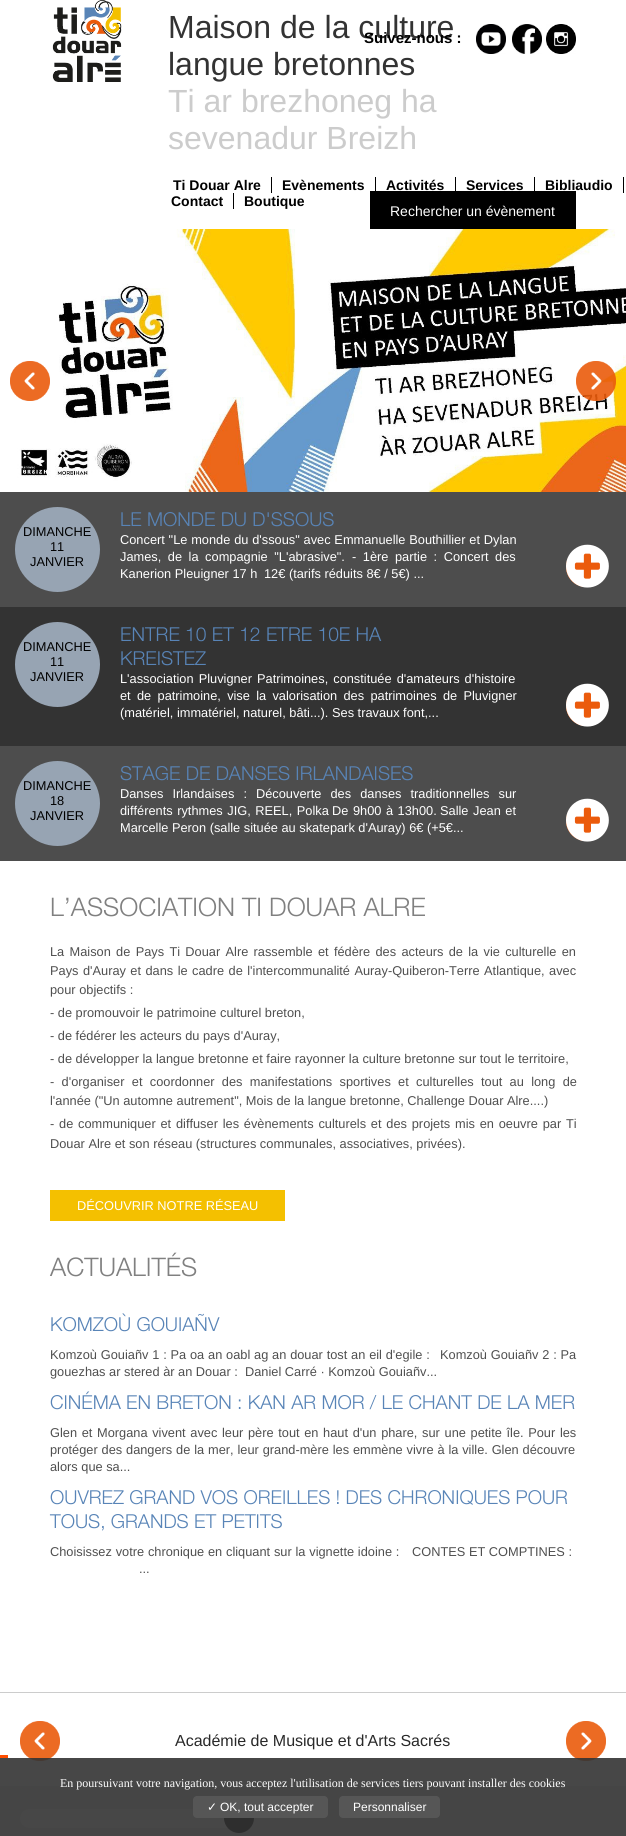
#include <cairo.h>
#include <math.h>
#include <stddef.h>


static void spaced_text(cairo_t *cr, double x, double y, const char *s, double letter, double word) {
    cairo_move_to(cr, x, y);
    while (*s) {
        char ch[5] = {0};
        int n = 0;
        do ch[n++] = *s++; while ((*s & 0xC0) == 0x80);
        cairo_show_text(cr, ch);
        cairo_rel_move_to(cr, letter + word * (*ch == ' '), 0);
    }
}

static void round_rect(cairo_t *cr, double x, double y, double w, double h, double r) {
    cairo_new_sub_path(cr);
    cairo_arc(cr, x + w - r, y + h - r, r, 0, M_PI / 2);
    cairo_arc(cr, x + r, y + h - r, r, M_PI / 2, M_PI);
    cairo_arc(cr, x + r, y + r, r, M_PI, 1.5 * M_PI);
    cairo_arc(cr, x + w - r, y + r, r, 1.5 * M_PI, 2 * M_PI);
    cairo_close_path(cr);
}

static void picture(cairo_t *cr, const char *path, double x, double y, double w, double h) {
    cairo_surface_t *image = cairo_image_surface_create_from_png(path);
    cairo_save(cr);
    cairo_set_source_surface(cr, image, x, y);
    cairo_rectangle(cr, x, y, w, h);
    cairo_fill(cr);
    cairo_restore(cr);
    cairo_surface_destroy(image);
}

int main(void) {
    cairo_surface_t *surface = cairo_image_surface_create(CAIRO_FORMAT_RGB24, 626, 1836);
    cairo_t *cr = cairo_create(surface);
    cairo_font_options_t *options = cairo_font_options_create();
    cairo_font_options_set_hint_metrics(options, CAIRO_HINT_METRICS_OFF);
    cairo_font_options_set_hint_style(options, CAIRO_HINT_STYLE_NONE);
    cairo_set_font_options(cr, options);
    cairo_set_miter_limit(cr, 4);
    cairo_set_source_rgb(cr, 1, 1, 1);
    cairo_paint(cr);
    picture(cr, "img1.png", 52, 0, 70, 82);
    cairo_select_font_face(cr, "Liberation Sans", CAIRO_FONT_SLANT_NORMAL, CAIRO_FONT_WEIGHT_NORMAL);
    cairo_set_font_size(cr, 32);
    cairo_set_source_rgb(cr, 0.2, 0.2, 0.2);
    cairo_move_to(cr, 168, 38);
    cairo_show_text(cr, "Maison de la culture");
    cairo_move_to(cr, 168, 75);
    cairo_show_text(cr, "langue bretonnes");
    cairo_set_source_rgb(cr, 0.8, 0.8, 0.8);
    cairo_move_to(cr, 168, 112);
    cairo_show_text(cr, "Ti ar brezhoneg ha");
    cairo_move_to(cr, 168, 149);
    cairo_show_text(cr, "sevenadur Breizh");
    cairo_select_font_face(cr, "Liberation Sans", CAIRO_FONT_SLANT_NORMAL, CAIRO_FONT_WEIGHT_BOLD);
    cairo_set_font_size(cr, 15);
    cairo_set_source_rgb(cr, 0, 0, 0);
    cairo_move_to(cr, 364, 43);
    cairo_show_text(cr, "Suivez-nous :");
    picture(cr, "img2.png", 476, 24, 30, 30);
    picture(cr, "img3.png", 512, 24, 30, 30);
    picture(cr, "img4.png", 546, 24, 30, 30);
    cairo_rectangle(cr, 271, 177, 1, 16);
    cairo_fill(cr);
    cairo_set_font_size(cr, 14);
    cairo_move_to(cr, 173, 190);
    cairo_show_text(cr, "Ti Douar Alre");
    cairo_rectangle(cr, 375, 177, 1, 16);
    cairo_fill(cr);
    cairo_move_to(cr, 282, 190);
    cairo_show_text(cr, "Evènements");
    cairo_rectangle(cr, 455, 177, 1, 16);
    cairo_fill(cr);
    cairo_move_to(cr, 386, 190);
    cairo_show_text(cr, "Activités");
    cairo_rectangle(cr, 534, 177, 1, 16);
    cairo_fill(cr);
    cairo_move_to(cr, 466, 190);
    cairo_show_text(cr, "Services");
    cairo_rectangle(cr, 623, 177, 1, 16);
    cairo_fill(cr);
    cairo_move_to(cr, 545, 190);
    cairo_show_text(cr, "Bibliaudio");
    cairo_rectangle(cr, 233, 193, 1, 16);
    cairo_fill(cr);
    cairo_move_to(cr, 171, 206);
    cairo_show_text(cr, "Contact");
    cairo_move_to(cr, 244, 206);
    cairo_show_text(cr, "Boutique");
    cairo_rectangle(cr, 370, 191, 206, 38);
    cairo_fill(cr);
    cairo_select_font_face(cr, "Liberation Sans", CAIRO_FONT_SLANT_NORMAL, CAIRO_FONT_WEIGHT_NORMAL);
    cairo_set_source_rgb(cr, 1, 1, 1);
    cairo_move_to(cr, 390, 216);
    cairo_show_text(cr, "Rechercher un évènement");
    picture(cr, "img5.png", 0, 229, 626, 263);
    picture(cr, "img6.png", 10, 361, 40, 40);
    picture(cr, "img7.png", 576, 361, 40, 40);
    cairo_set_source_rgb(cr, 0.302, 0.302, 0.302);
    cairo_rectangle(cr, 0, 492, 626, 115);
    cairo_fill(cr);
    cairo_set_source_rgb(cr, 0.592, 0.643, 0.702);
    cairo_arc(cr, 57.5, 549.5, 42.5, 0, 2 * M_PI);
    cairo_fill(cr);
    cairo_set_font_size(cr, 12.8);
    cairo_set_source_rgb(cr, 0, 0, 0);
    cairo_move_to(cr, 23, 536);
    cairo_show_text(cr, "DIMANCHE");
    cairo_move_to(cr, 50, 551);
    cairo_show_text(cr, "11");
    cairo_move_to(cr, 30, 566);
    cairo_show_text(cr, "JANVIER");
    cairo_select_font_face(cr, "Helvetica Neue Light", CAIRO_FONT_SLANT_NORMAL, CAIRO_FONT_WEIGHT_NORMAL);
    cairo_set_font_size(cr, 19.2);
    cairo_set_source_rgb(cr, 0.345, 0.518, 0.718);
    cairo_move_to(cr, 120, 526);
    cairo_show_text(cr, "LE MONDE DU D'SSOUS");
    cairo_select_font_face(cr, "Liberation Sans", CAIRO_FONT_SLANT_NORMAL, CAIRO_FONT_WEIGHT_NORMAL);
    cairo_set_font_size(cr, 12.8);
    cairo_set_source_rgb(cr, 1, 1, 1);
    spaced_text(cr, 120, 544, "Concert \"Le monde du d'ssous\" avec Emmanuelle Bouthillier et Dylan", 0, 0.25);
    spaced_text(cr, 120, 561, "James, de la compagnie \"L'abrasive\".", 0, 3);
    spaced_text(cr, 352, 561, "- 1ère partie : Concert des", 0, 3);
    cairo_move_to(cr, 120, 578);
    cairo_show_text(cr, "Kanerion Pleuigner 17 h");
    cairo_move_to(cr, 264, 578);
    cairo_show_text(cr, "12€ (tarifs réduits 8€ / 5€) ...");
    cairo_set_source_rgb(cr, 0.918, 0.357, 0.047);
    cairo_new_path(cr);
    cairo_arc(cr, 586, 567, 20, 0, 2 * M_PI);
    cairo_fill(cr);
    picture(cr, "img8.png", 566, 544, 43, 44);
    cairo_set_source_rgb(cr, 0.2, 0.2, 0.2);
    cairo_rectangle(cr, 0, 607, 626, 139);
    cairo_fill(cr);
    cairo_set_source_rgb(cr, 0.592, 0.643, 0.702);
    cairo_arc(cr, 57.5, 664.5, 42.5, 0, 2 * M_PI);
    cairo_fill(cr);
    cairo_set_source_rgb(cr, 0, 0, 0);
    cairo_move_to(cr, 23, 651);
    cairo_show_text(cr, "DIMANCHE");
    cairo_move_to(cr, 50, 666);
    cairo_show_text(cr, "11");
    cairo_move_to(cr, 30, 681);
    cairo_show_text(cr, "JANVIER");
    cairo_select_font_face(cr, "Helvetica Neue Light", CAIRO_FONT_SLANT_NORMAL, CAIRO_FONT_WEIGHT_NORMAL);
    cairo_set_font_size(cr, 19.2);
    cairo_set_source_rgb(cr, 0.345, 0.518, 0.718);
    cairo_move_to(cr, 120, 641);
    cairo_show_text(cr, "ENTRE 10 ET 12 ETRE 10E HA");
    cairo_move_to(cr, 120, 665);
    cairo_show_text(cr, "KREISTEZ");
    cairo_select_font_face(cr, "Liberation Sans", CAIRO_FONT_SLANT_NORMAL, CAIRO_FONT_WEIGHT_NORMAL);
    cairo_set_font_size(cr, 12.8);
    cairo_set_source_rgb(cr, 1, 1, 1);
    spaced_text(cr, 120, 683, "L'association Pluvigner Patrimoines, constituée d'amateurs d'histoire", 0, 1.5);
    spaced_text(cr, 120, 700, "et de patrimoine, vise la valorisation des patrimoines de Pluvigner", 0, 2.75);
    cairo_move_to(cr, 120, 717);
    cairo_show_text(cr, "(matériel, immatériel, naturel, bâti...). Ses travaux font,...");
    cairo_set_source_rgb(cr, 0.918, 0.357, 0.047);
    cairo_new_path(cr);
    cairo_arc(cr, 586, 706, 20, 0, 2 * M_PI);
    cairo_fill(cr);
    picture(cr, "img9.png", 566, 683, 43, 44);
    cairo_set_source_rgb(cr, 0.302, 0.302, 0.302);
    cairo_rectangle(cr, 0, 746, 626, 115);
    cairo_fill(cr);
    cairo_set_source_rgb(cr, 0.592, 0.643, 0.702);
    cairo_arc(cr, 57.5, 803.5, 42.5, 0, 2 * M_PI);
    cairo_fill(cr);
    cairo_set_source_rgb(cr, 0, 0, 0);
    cairo_move_to(cr, 23, 790);
    cairo_show_text(cr, "DIMANCHE");
    cairo_move_to(cr, 50, 805);
    cairo_show_text(cr, "18");
    cairo_move_to(cr, 30, 820);
    cairo_show_text(cr, "JANVIER");
    cairo_select_font_face(cr, "Helvetica Neue Light", CAIRO_FONT_SLANT_NORMAL, CAIRO_FONT_WEIGHT_NORMAL);
    cairo_set_font_size(cr, 19.2);
    cairo_set_source_rgb(cr, 0.345, 0.518, 0.718);
    cairo_move_to(cr, 120, 780);
    cairo_show_text(cr, "STAGE DE DANSES IRLANDAISES");
    cairo_select_font_face(cr, "Liberation Sans", CAIRO_FONT_SLANT_NORMAL, CAIRO_FONT_WEIGHT_NORMAL);
    cairo_set_font_size(cr, 12.8);
    cairo_set_source_rgb(cr, 1, 1, 1);
    spaced_text(cr, 120, 798, "Danses Irlandaises : Découverte des danses traditionnelles sur", 0, 5.5);
    spaced_text(cr, 120, 815, "différents rythmes JIG, REEL, Polka", 0, 1);
    spaced_text(cr, 332, 815, "De 9h00 à 13h00.", 0, 1);
    spaced_text(cr, 440, 815, "Salle Jean et", 0, 1);
    cairo_move_to(cr, 120, 832);
    cairo_show_text(cr, "Marcelle Peron (salle située au skatepark d'Auray) 6€ (+5€...");
    cairo_set_source_rgb(cr, 0.918, 0.357, 0.047);
    cairo_new_path(cr);
    cairo_arc(cr, 586, 821, 20, 0, 2 * M_PI);
    cairo_fill(cr);
    picture(cr, "img8.png", 566, 798, 43, 44);
    cairo_set_source_rgb(cr, 0.902, 0.902, 0.902);
    cairo_rectangle(cr, 0, 1786, 626, 50);
    cairo_fill(cr);
    cairo_set_source_rgb(cr, 1, 1, 1);
    round_rect(cr, 20, 1809, 230, 19, 9.5);
    cairo_fill(cr);
    cairo_set_source_rgb(cr, 0, 0, 0);
    cairo_arc(cr, 239, 1818, 15, 0, 2 * M_PI);
    cairo_fill(cr);
    cairo_select_font_face(cr, "Helvetica Neue Light", CAIRO_FONT_SLANT_NORMAL, CAIRO_FONT_WEIGHT_NORMAL);
    cairo_set_font_size(cr, 25.6);
    cairo_set_source_rgb(cr, 0.502, 0.502, 0.502);
    cairo_move_to(cr, 50, 916);
    cairo_show_text(cr, "L’ASSOCIATION TI DOUAR ALRE");
    cairo_select_font_face(cr, "Liberation Sans", CAIRO_FONT_SLANT_NORMAL, CAIRO_FONT_WEIGHT_NORMAL);
    cairo_set_font_size(cr, 12.8);
    cairo_set_source_rgb(cr, 0.31, 0.31, 0.31);
    spaced_text(cr, 50, 956, "La Maison de Pays Ti Douar Alre rassemble et fédère des acteurs de la vie culturelle en", 0, 1.75);
    spaced_text(cr, 50, 975, "Pays d'Auray et dans le cadre de l'intercommunalité Auray-Quiberon-Terre Atlantique, avec", 0, 0.9);
    cairo_move_to(cr, 50, 994);
    cairo_show_text(cr, "pour objectifs :");
    cairo_move_to(cr, 50, 1017);
    cairo_show_text(cr, "- de promouvoir le patrimoine culturel breton,");
    cairo_move_to(cr, 50, 1040);
    cairo_show_text(cr, "- de fédérer les acteurs du pays d'Auray,");
    cairo_move_to(cr, 50, 1063);
    cairo_show_text(cr, "- de développer la langue bretonne et faire rayonner la culture bretonne sur tout le territoire,");
    spaced_text(cr, 50, 1086, "- d'organiser et coordonner des manifestations sportives et culturelles tout au long de", 0, 3.75);
    cairo_move_to(cr, 50, 1105);
    cairo_show_text(cr, "l'année (\"Un automne autrement\", Mois de la langue bretonne, Challenge Douar Alre....)");
    spaced_text(cr, 50, 1128, "- de communiquer et diffuser les évènements culturels et des projets mis en oeuvre par Ti", 0, 1.25);
    cairo_move_to(cr, 50, 1148);
    cairo_show_text(cr, "Douar Alre et son réseau (structures communales, associatives, privées).");
    cairo_set_source_rgb(cr, 0.957, 0.753, 0);
    cairo_rectangle(cr, 50, 1190, 235, 31);
    cairo_fill(cr);
    cairo_set_source_rgb(cr, 1, 1, 1);
    cairo_move_to(cr, 77, 1210);
    cairo_show_text(cr, "DÉCOUVRIR NOTRE RÉSEAU");
    cairo_select_font_face(cr, "Helvetica Neue Light", CAIRO_FONT_SLANT_NORMAL, CAIRO_FONT_WEIGHT_NORMAL);
    cairo_set_font_size(cr, 25.6);
    cairo_set_source_rgb(cr, 0.502, 0.502, 0.502);
    cairo_move_to(cr, 50, 1276);
    cairo_show_text(cr, "ACTUALITÉS");
    cairo_set_font_size(cr, 19.2);
    cairo_set_source_rgb(cr, 0.345, 0.518, 0.718);
    cairo_move_to(cr, 50, 1331);
    cairo_show_text(cr, "KOMZOÙ GOUIAÑV");
    cairo_select_font_face(cr, "Liberation Sans", CAIRO_FONT_SLANT_NORMAL, CAIRO_FONT_WEIGHT_NORMAL);
    cairo_set_font_size(cr, 12.8);
    cairo_set_source_rgb(cr, 0.31, 0.31, 0.31);
    spaced_text(cr, 50, 1359, "Komzoù Gouiañv 1 : Pa oa an oabl ag an douar tost an eil d'egile :", 0, 0.25);
    spaced_text(cr, 440, 1359, "Komzoù Gouiañv 2 : Pa", 0, 0.25);
    cairo_move_to(cr, 50, 1376);
    cairo_show_text(cr, "gouezhas ar stered àr an Douar :");
    cairo_move_to(cr, 245, 1376);
    cairo_show_text(cr, "Daniel Carré · Komzoù Gouiañv...");
    cairo_select_font_face(cr, "Helvetica Neue Light", CAIRO_FONT_SLANT_NORMAL, CAIRO_FONT_WEIGHT_NORMAL);
    cairo_set_font_size(cr, 19.2);
    cairo_set_source_rgb(cr, 0.345, 0.518, 0.718);
    cairo_move_to(cr, 50, 1409);
    cairo_show_text(cr, "CINÉMA EN BRETON : KAN AR MOR / LE CHANT DE LA MER");
    cairo_select_font_face(cr, "Liberation Sans", CAIRO_FONT_SLANT_NORMAL, CAIRO_FONT_WEIGHT_NORMAL);
    cairo_set_font_size(cr, 12.8);
    cairo_set_source_rgb(cr, 0.31, 0.31, 0.31);
    spaced_text(cr, 50, 1437, "Glen et Morgana vivent avec leur père tout en haut d'un phare, sur une petite île. Pour les", 0, 1.1);
    spaced_text(cr, 50, 1454, "protéger des dangers de la mer, leur grand-mère les emmène vivre à la ville. Glen découvre", 0, 0.3);
    cairo_move_to(cr, 50, 1471);
    cairo_show_text(cr, "alors que sa...");
    cairo_select_font_face(cr, "Helvetica Neue Light", CAIRO_FONT_SLANT_NORMAL, CAIRO_FONT_WEIGHT_NORMAL);
    cairo_set_font_size(cr, 19.2);
    cairo_set_source_rgb(cr, 0.345, 0.518, 0.718);
    cairo_move_to(cr, 50, 1504);
    cairo_show_text(cr, "OUVREZ GRAND VOS OREILLES ! DES CHRONIQUES POUR");
    cairo_move_to(cr, 50, 1528);
    cairo_show_text(cr, "TOUS, GRANDS ET PETITS");
    cairo_select_font_face(cr, "Liberation Sans", CAIRO_FONT_SLANT_NORMAL, CAIRO_FONT_WEIGHT_NORMAL);
    cairo_set_font_size(cr, 12.8);
    cairo_set_source_rgb(cr, 0.31, 0.31, 0.31);
    spaced_text(cr, 50, 1556, "Choisissez votre chronique en cliquant sur la vignette idoine :", 0, 0.25);
    cairo_move_to(cr, 412, 1556);
    cairo_show_text(cr, "CONTES ET COMPTINES :");
    cairo_move_to(cr, 139, 1573);
    cairo_show_text(cr, "...");
    cairo_set_source_rgb(cr, 0.8, 0.8, 0.8);
    cairo_rectangle(cr, 0, 1692, 626, 1);
    cairo_fill(cr);
    picture(cr, "img10.png", 20, 1721, 40, 40);
    cairo_set_font_size(cr, 16);
    cairo_set_source_rgb(cr, 0.161, 0.161, 0.161);
    cairo_move_to(cr, 175, 1746);
    cairo_show_text(cr, "Académie de Musique et d'Arts Sacrés");
    picture(cr, "img11.png", 566, 1721, 40, 40);
    cairo_set_source_rgb(cr, 0.996, 0.302, 0);
    cairo_rectangle(cr, 0, 1755, 8, 3);
    cairo_fill(cr);
    cairo_set_source_rgba(cr, 0.2, 0.2, 0.2, 0.9);
    cairo_rectangle(cr, 0, 1758, 626, 78);
    cairo_fill(cr);
    cairo_select_font_face(cr, "Liberation Serif", CAIRO_FONT_SLANT_NORMAL, CAIRO_FONT_WEIGHT_NORMAL);
    cairo_set_font_size(cr, 12);
    cairo_set_source_rgb(cr, 1, 1, 1);
    cairo_move_to(cr, 60, 1787);
    cairo_show_text(cr, "En poursuivant votre navigation, vous acceptez l'utilisation de services tiers pouvant installer des cookies");
    cairo_set_source_rgb(cr, 0.337, 0.337, 0.337);
    round_rect(cr, 193, 1796, 135, 22, 4);
    cairo_fill(cr);
    cairo_select_font_face(cr, "DejaVu Sans", CAIRO_FONT_SLANT_NORMAL, CAIRO_FONT_WEIGHT_NORMAL);
    cairo_set_source_rgb(cr, 1, 1, 1);
    cairo_move_to(cr, 207, 1811);
    cairo_show_text(cr, "✓");
    cairo_select_font_face(cr, "Liberation Sans", CAIRO_FONT_SLANT_NORMAL, CAIRO_FONT_WEIGHT_NORMAL);
    cairo_move_to(cr, 220, 1811);
    cairo_show_text(cr, "OK, tout accepter");
    cairo_set_source_rgb(cr, 0.337, 0.337, 0.337);
    round_rect(cr, 339, 1796, 101, 22, 4);
    cairo_fill(cr);
    cairo_set_source_rgb(cr, 1, 1, 1);
    cairo_move_to(cr, 353, 1811);
    cairo_show_text(cr, "Personnaliser");
    cairo_surface_write_to_png(surface, "page.png");
    cairo_font_options_destroy(options);
    cairo_destroy(cr);
    cairo_surface_destroy(surface);
    return 0;
}
